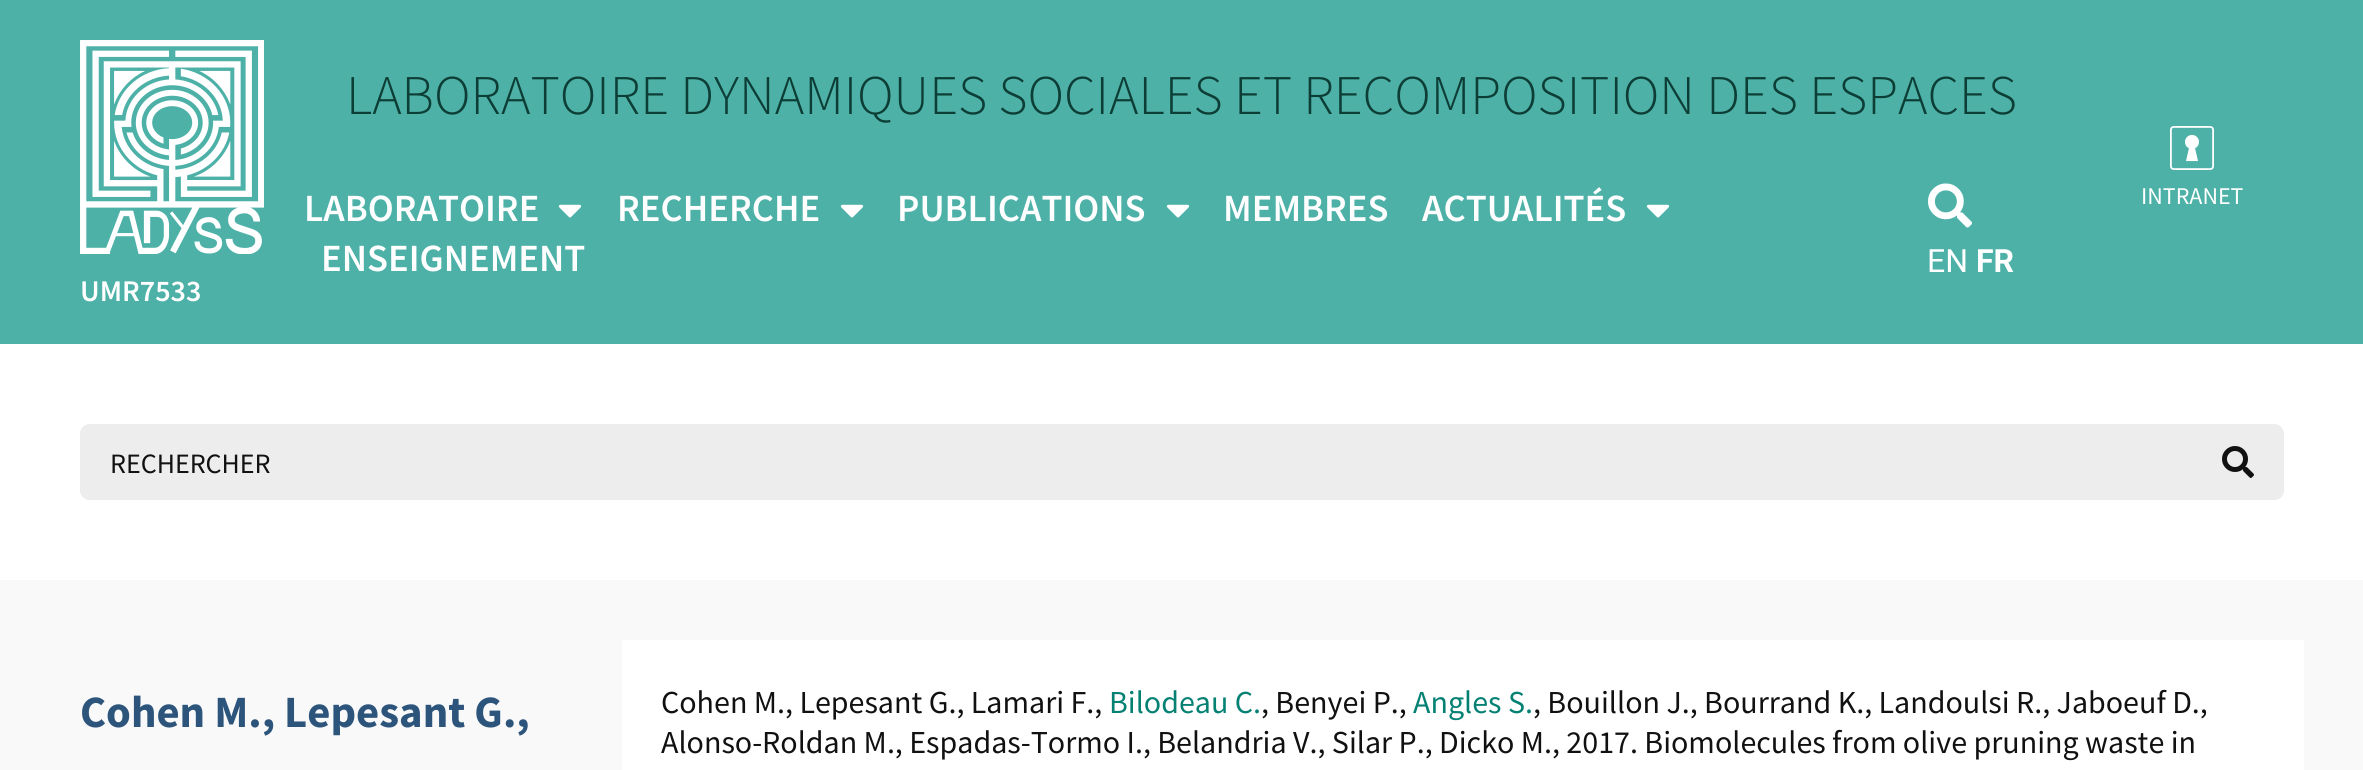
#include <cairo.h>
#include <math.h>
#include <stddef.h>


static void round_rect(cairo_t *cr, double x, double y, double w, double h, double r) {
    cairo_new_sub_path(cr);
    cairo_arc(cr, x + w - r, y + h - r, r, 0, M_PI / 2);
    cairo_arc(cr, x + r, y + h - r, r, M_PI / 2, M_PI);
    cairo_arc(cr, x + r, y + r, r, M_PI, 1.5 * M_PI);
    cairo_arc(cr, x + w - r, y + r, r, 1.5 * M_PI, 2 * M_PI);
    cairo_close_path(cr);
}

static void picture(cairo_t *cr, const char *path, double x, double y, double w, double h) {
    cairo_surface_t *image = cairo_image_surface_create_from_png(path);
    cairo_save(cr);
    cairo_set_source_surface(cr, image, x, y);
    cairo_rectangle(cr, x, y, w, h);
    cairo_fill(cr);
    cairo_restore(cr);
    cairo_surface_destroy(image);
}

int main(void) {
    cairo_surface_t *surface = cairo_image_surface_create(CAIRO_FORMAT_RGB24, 2363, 770);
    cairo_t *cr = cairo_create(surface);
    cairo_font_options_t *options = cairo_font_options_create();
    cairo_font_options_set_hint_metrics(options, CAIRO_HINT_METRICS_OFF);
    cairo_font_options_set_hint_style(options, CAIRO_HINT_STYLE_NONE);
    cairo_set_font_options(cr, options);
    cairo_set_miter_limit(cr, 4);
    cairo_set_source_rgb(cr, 1, 1, 1);
    cairo_paint(cr);
    cairo_set_source_rgb(cr, 0.302, 0.694, 0.659);
    cairo_rectangle(cr, 0, 0, 2363, 344);
    cairo_fill(cr);
    cairo_select_font_face(cr, "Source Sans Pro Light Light", CAIRO_FONT_SLANT_NORMAL, CAIRO_FONT_WEIGHT_NORMAL);
    cairo_set_font_size(cr, 56);
    cairo_set_source_rgb(cr, 0.051, 0.243, 0.212);
    cairo_move_to(cr, 346, 114);
    cairo_show_text(cr, "LABORATOIRE DYNAMIQUES SOCIALES ET RECOMPOSITION DES ESPACES");
    cairo_select_font_face(cr, "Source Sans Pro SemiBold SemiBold", CAIRO_FONT_SLANT_NORMAL, CAIRO_FONT_WEIGHT_NORMAL);
    cairo_set_font_size(cr, 38.5);
    cairo_set_source_rgb(cr, 1, 1, 1);
    cairo_move_to(cr, 304, 221);
    cairo_show_text(cr, "LABORATOIRE");
    picture(cr, "img1.png", 558, 204, 24, 14);
    cairo_move_to(cr, 617, 221);
    cairo_show_text(cr, "RECHERCHE");
    picture(cr, "img1.png", 840, 204, 24, 14);
    cairo_move_to(cr, 897, 221);
    cairo_show_text(cr, "PUBLICATIONS");
    picture(cr, "img1.png", 1166, 204, 24, 14);
    cairo_move_to(cr, 1223, 221);
    cairo_show_text(cr, "MEMBRES");
    cairo_move_to(cr, 1422, 221);
    cairo_show_text(cr, "ACTUALITÉS");
    picture(cr, "img1.png", 1646, 204, 24, 14);
    cairo_move_to(cr, 321, 271);
    cairo_show_text(cr, "ENSEIGNEMENT");
    picture(cr, "img2.png", 1928, 183, 44, 45);
    cairo_select_font_face(cr, "Roboto", CAIRO_FONT_SLANT_NORMAL, CAIRO_FONT_WEIGHT_NORMAL);
    cairo_set_font_size(cr, 32);
    cairo_move_to(cr, 1927, 272);
    cairo_show_text(cr, "EN");
    cairo_select_font_face(cr, "Roboto", CAIRO_FONT_SLANT_NORMAL, CAIRO_FONT_WEIGHT_BOLD);
    cairo_move_to(cr, 1976, 272);
    cairo_show_text(cr, "FR");
    picture(cr, "img3.png", 2170, 126, 44, 44);
    cairo_select_font_face(cr, "Source Sans Pro", CAIRO_FONT_SLANT_NORMAL, CAIRO_FONT_WEIGHT_NORMAL);
    cairo_set_font_size(cr, 24);
    cairo_move_to(cr, 2141, 204);
    cairo_show_text(cr, "INTRANET");
    picture(cr, "img4.png", 80, 40, 184, 214);
    cairo_select_font_face(cr, "Source Sans Pro SemiBold SemiBold", CAIRO_FONT_SLANT_NORMAL, CAIRO_FONT_WEIGHT_NORMAL);
    cairo_set_font_size(cr, 30);
    cairo_move_to(cr, 80, 301);
    cairo_show_text(cr, "UMR7533");
    cairo_set_source_rgb(cr, 0.929, 0.929, 0.929);
    round_rect(cr, 80, 424, 2204, 76, 10);
    cairo_fill(cr);
    round_rect(cr, 80, 424, 2112, 76, 10);
    cairo_fill(cr);
    cairo_select_font_face(cr, "Source Sans Pro", CAIRO_FONT_SLANT_NORMAL, CAIRO_FONT_WEIGHT_NORMAL);
    cairo_set_font_size(cr, 28);
    cairo_set_source_rgb(cr, 0.067, 0.067, 0.067);
    cairo_move_to(cr, 110, 473);
    cairo_show_text(cr, "RECHERCHER");
    cairo_set_source_rgb(cr, 0.929, 0.929, 0.929);
    round_rect(cr, 2192, 426, 92, 74, 10);
    cairo_fill(cr);
    picture(cr, "img5.png", 2222, 446, 32, 32);
    cairo_set_source_rgb(cr, 0.976, 0.976, 0.976);
    cairo_rectangle(cr, 0, 580, 2363, 190);
    cairo_fill(cr);
    cairo_select_font_face(cr, "Source Sans Pro", CAIRO_FONT_SLANT_NORMAL, CAIRO_FONT_WEIGHT_BOLD);
    cairo_set_font_size(cr, 44.75);
    cairo_set_source_rgb(cr, 0.176, 0.333, 0.486);
    cairo_move_to(cr, 80, 727);
    cairo_show_text(cr, "Cohen M., Lepesant G.,");
    cairo_set_source_rgb(cr, 1, 1, 1);
    cairo_rectangle(cr, 622, 640, 1682, 130);
    cairo_fill(cr);
    cairo_select_font_face(cr, "Source Sans Pro", CAIRO_FONT_SLANT_NORMAL, CAIRO_FONT_WEIGHT_NORMAL);
    cairo_set_font_size(cr, 32);
    cairo_set_source_rgb(cr, 0.067, 0.067, 0.067);
    cairo_move_to(cr, 661, 713);
    cairo_show_text(cr, "Cohen M., Lepesant G., Lamari F.,");
    cairo_set_source_rgb(cr, 0.02, 0.506, 0.455);
    cairo_move_to(cr, 1109, 713);
    cairo_show_text(cr, "Bilodeau C.");
    cairo_set_source_rgb(cr, 0.067, 0.067, 0.067);
    cairo_move_to(cr, 1261, 713);
    cairo_show_text(cr, ", Benyei P.,");
    cairo_set_source_rgb(cr, 0.02, 0.506, 0.455);
    cairo_move_to(cr, 1413, 713);
    cairo_show_text(cr, "Angles S.");
    cairo_set_source_rgb(cr, 0.067, 0.067, 0.067);
    cairo_move_to(cr, 1533, 713);
    cairo_show_text(cr, ", Bouillon J., Bourrand K., Landoulsi R., Jaboeuf D.,");
    cairo_move_to(cr, 661, 753);
    cairo_show_text(cr, "Alonso-Roldan M., Espadas-Tormo I., Belandria V., Silar P., Dicko M., 2017. Biomolecules from olive pruning waste in");
    cairo_surface_write_to_png(surface, "page.png");
    cairo_font_options_destroy(options);
    cairo_destroy(cr);
    cairo_surface_destroy(surface);
    return 0;
}
